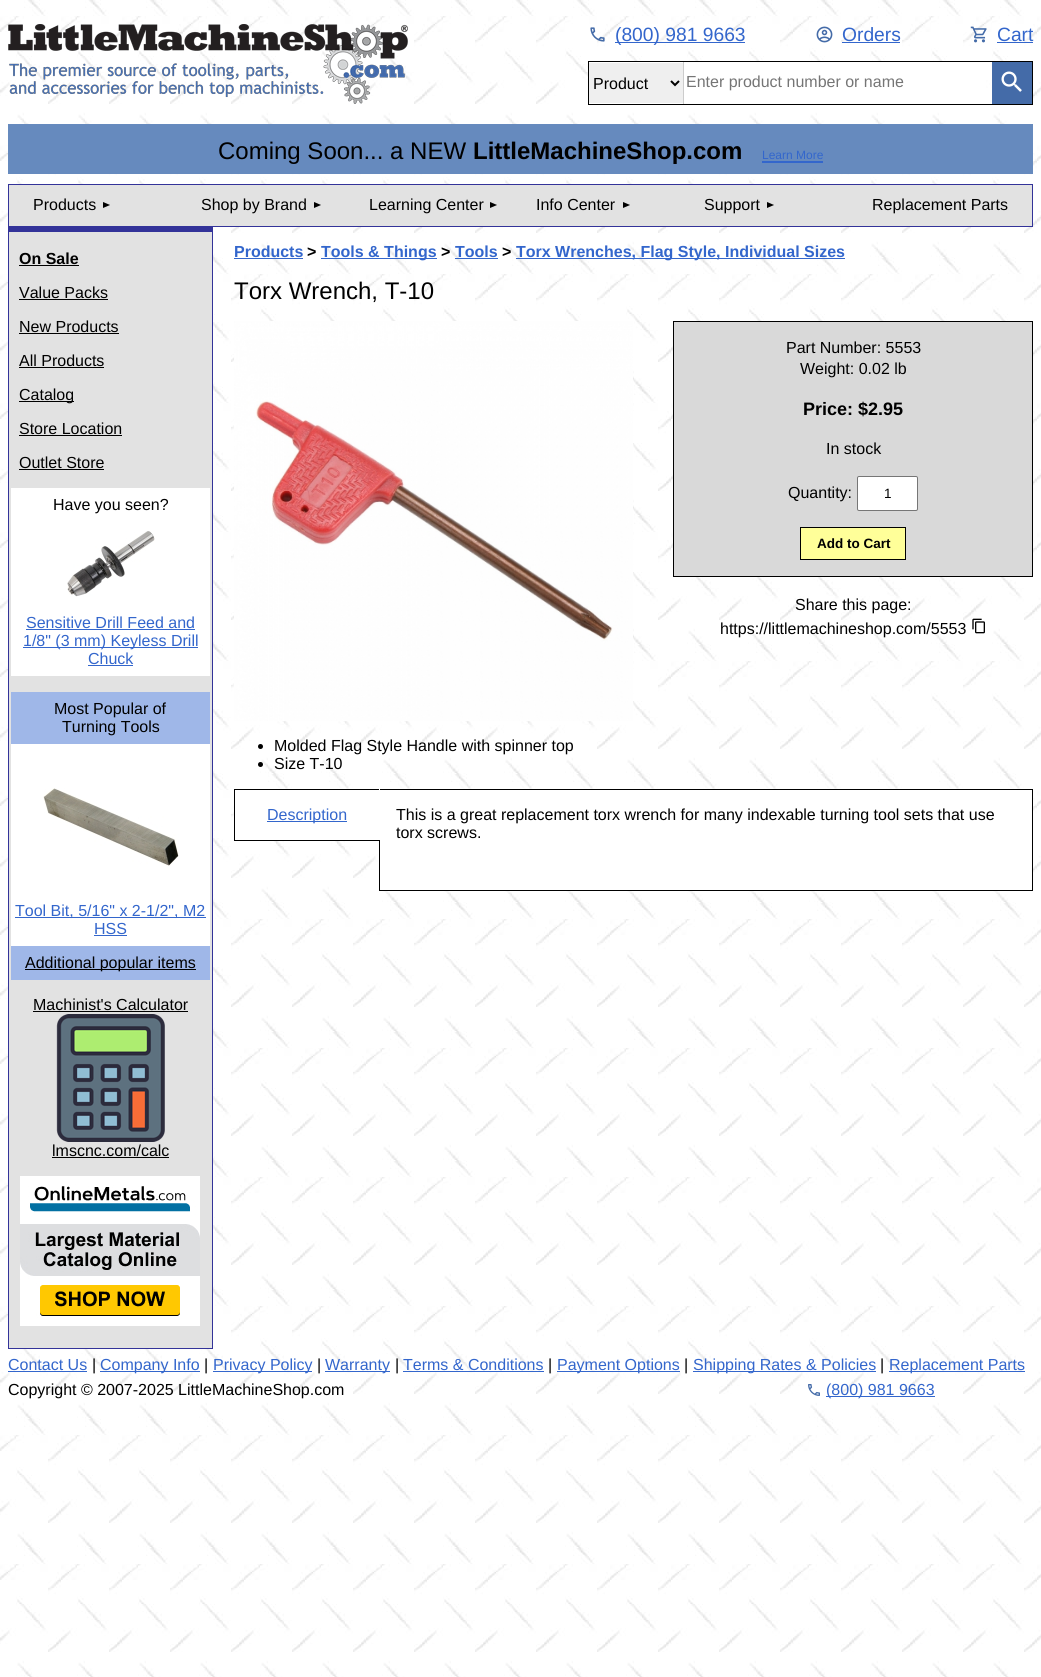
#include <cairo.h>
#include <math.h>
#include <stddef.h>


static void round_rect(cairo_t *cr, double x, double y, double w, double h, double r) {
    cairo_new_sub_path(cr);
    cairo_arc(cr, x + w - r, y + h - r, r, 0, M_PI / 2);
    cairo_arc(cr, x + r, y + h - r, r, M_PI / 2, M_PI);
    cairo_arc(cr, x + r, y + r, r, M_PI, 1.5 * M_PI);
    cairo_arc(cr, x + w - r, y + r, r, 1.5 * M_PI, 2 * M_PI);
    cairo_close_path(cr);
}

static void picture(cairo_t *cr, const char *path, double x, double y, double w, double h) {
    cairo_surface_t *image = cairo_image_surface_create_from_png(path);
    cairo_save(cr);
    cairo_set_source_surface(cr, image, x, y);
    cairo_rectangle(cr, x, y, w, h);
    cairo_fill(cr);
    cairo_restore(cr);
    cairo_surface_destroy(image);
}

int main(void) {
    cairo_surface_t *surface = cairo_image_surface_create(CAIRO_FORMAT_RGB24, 1041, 1677);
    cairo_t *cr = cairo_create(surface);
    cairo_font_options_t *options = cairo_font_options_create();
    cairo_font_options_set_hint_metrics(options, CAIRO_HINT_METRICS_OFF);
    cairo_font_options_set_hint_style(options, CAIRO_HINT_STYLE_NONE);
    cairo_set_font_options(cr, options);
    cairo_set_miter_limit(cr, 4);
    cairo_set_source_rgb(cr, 1, 1, 1);
    cairo_paint(cr);
    picture(cr, "img1.png", 0, 0, 1041, 1677);
    picture(cr, "img2.png", 8, 24, 400, 80);
    picture(cr, "img3.png", 590, 27, 15, 15);
    cairo_set_source_rgb(cr, 0.2, 0.4, 0.8);
    cairo_rectangle(cr, 615, 42, 130, 1);
    cairo_fill(cr);
    cairo_select_font_face(cr, "Liberation Sans", CAIRO_FONT_SLANT_NORMAL, CAIRO_FONT_WEIGHT_NORMAL);
    cairo_set_font_size(cr, 19.25);
    cairo_move_to(cr, 615, 41);
    cairo_show_text(cr, "(800) 981 9663");
    picture(cr, "img4.png", 816, 26, 17, 17);
    cairo_move_to(cr, 842, 41);
    cairo_show_text(cr, "Orders");
    cairo_rectangle(cr, 842, 42, 58, 1);
    cairo_fill(cr);
    picture(cr, "img5.png", 970, 26, 17, 17);
    cairo_move_to(cr, 997, 41);
    cairo_show_text(cr, "Cart");
    cairo_rectangle(cr, 997, 42, 36, 1);
    cairo_fill(cr);
    cairo_rectangle(cr, 588.5, 61.5, 444, 43);
    cairo_set_source_rgb(cr, 0, 0, 0);
    cairo_set_line_width(cr, 1);
    cairo_stroke(cr);
    cairo_set_source_rgb(cr, 1, 1, 1);
    cairo_rectangle(cr, 589, 62, 397, 42);
    cairo_fill(cr);
    cairo_set_source_rgb(cr, 0.8, 0.8, 0.8);
    cairo_rectangle(cr, 683, 62, 1, 42);
    cairo_fill(cr);
    cairo_set_source_rgb(cr, 0.937, 0.937, 0.937);
    cairo_rectangle(cr, 589, 63, 94, 40);
    cairo_fill(cr);
    cairo_new_path(cr);
    cairo_move_to(cr, 671, 81);
    cairo_line_to(cr, 675, 85);
    cairo_line_to(cr, 679, 81);
    cairo_set_source_rgb(cr, 0, 0, 0);
    cairo_set_line_width(cr, 2);
    cairo_stroke(cr);
    cairo_set_font_size(cr, 16);
    cairo_move_to(cr, 593, 89);
    cairo_show_text(cr, "Product");
    cairo_set_source_rgb(cr, 0.459, 0.459, 0.459);
    cairo_move_to(cr, 686, 87);
    cairo_show_text(cr, "Enter product number or name");
    cairo_set_source_rgb(cr, 0.267, 0.42, 0.659);
    cairo_rectangle(cr, 992, 62, 40, 42);
    cairo_fill(cr);
    picture(cr, "img6.png", 1001, 71, 21, 21);
    cairo_set_source_rgb(cr, 0.4, 0.541, 0.745);
    cairo_rectangle(cr, 8, 124, 1025, 50);
    cairo_fill(cr);
    cairo_set_font_size(cr, 24);
    cairo_set_source_rgb(cr, 0, 0, 0);
    cairo_move_to(cr, 218, 159);
    cairo_show_text(cr, "Coming Soon... a NEW");
    cairo_select_font_face(cr, "Liberation Sans", CAIRO_FONT_SLANT_NORMAL, CAIRO_FONT_WEIGHT_BOLD);
    cairo_move_to(cr, 473, 159);
    cairo_show_text(cr, "LittleMachineShop.com");
    cairo_select_font_face(cr, "Liberation Sans", CAIRO_FONT_SLANT_NORMAL, CAIRO_FONT_WEIGHT_NORMAL);
    cairo_set_font_size(cr, 12);
    cairo_set_source_rgb(cr, 0.2, 0.4, 0.8);
    cairo_move_to(cr, 762, 159);
    cairo_show_text(cr, "Learn More");
    cairo_rectangle(cr, 762, 161, 61, 2);
    cairo_fill(cr);
    cairo_set_source_rgb(cr, 0.886, 0.886, 0.886);
    cairo_rectangle(cr, 8.5, 184.5, 1024, 42);
    cairo_fill_preserve(cr);
    cairo_set_source_rgb(cr, 0.2, 0.2, 0.6);
    cairo_set_line_width(cr, 1);
    cairo_stroke(cr);
    cairo_set_font_size(cr, 16);
    cairo_set_source_rgb(cr, 0, 0, 0);
    cairo_move_to(cr, 33, 210);
    cairo_show_text(cr, "Products");
    cairo_new_path(cr);
    cairo_move_to(cr, 103, 208);
    cairo_line_to(cr, 103, 202);
    cairo_line_to(cr, 110, 205);
    cairo_close_path(cr);
    cairo_fill(cr);
    cairo_move_to(cr, 201, 210);
    cairo_show_text(cr, "Shop by Brand");
    cairo_new_path(cr);
    cairo_move_to(cr, 314, 208);
    cairo_line_to(cr, 314, 202);
    cairo_line_to(cr, 321, 205);
    cairo_close_path(cr);
    cairo_fill(cr);
    cairo_move_to(cr, 369, 210);
    cairo_show_text(cr, "Learning Center");
    cairo_new_path(cr);
    cairo_move_to(cr, 490, 208);
    cairo_line_to(cr, 490, 202);
    cairo_line_to(cr, 497, 205);
    cairo_close_path(cr);
    cairo_fill(cr);
    cairo_move_to(cr, 536, 210);
    cairo_show_text(cr, "Info Center");
    cairo_new_path(cr);
    cairo_move_to(cr, 623, 208);
    cairo_line_to(cr, 623, 202);
    cairo_line_to(cr, 630, 205);
    cairo_close_path(cr);
    cairo_fill(cr);
    cairo_move_to(cr, 704, 210);
    cairo_show_text(cr, "Support");
    cairo_new_path(cr);
    cairo_move_to(cr, 767, 208);
    cairo_line_to(cr, 767, 202);
    cairo_line_to(cr, 774, 205);
    cairo_close_path(cr);
    cairo_fill(cr);
    cairo_move_to(cr, 872, 210);
    cairo_show_text(cr, "Replacement Parts");
    cairo_set_source_rgb(cr, 0.886, 0.886, 0.886);
    cairo_rectangle(cr, 9, 232, 203, 1116);
    cairo_fill(cr);
    cairo_set_source_rgb(cr, 0.2, 0.2, 0.6);
    cairo_rectangle(cr, 8, 227, 205, 5);
    cairo_fill(cr);
    cairo_rectangle(cr, 212, 227, 1, 1122);
    cairo_fill(cr);
    cairo_rectangle(cr, 8, 1348, 205, 1);
    cairo_fill(cr);
    cairo_rectangle(cr, 8, 227, 1, 1122);
    cairo_fill(cr);
    cairo_select_font_face(cr, "Liberation Sans", CAIRO_FONT_SLANT_NORMAL, CAIRO_FONT_WEIGHT_BOLD);
    cairo_set_source_rgb(cr, 0, 0, 0);
    cairo_move_to(cr, 19, 264);
    cairo_show_text(cr, "On Sale");
    cairo_rectangle(cr, 19, 265, 60, 1);
    cairo_fill(cr);
    cairo_select_font_face(cr, "Liberation Sans", CAIRO_FONT_SLANT_NORMAL, CAIRO_FONT_WEIGHT_NORMAL);
    cairo_move_to(cr, 19, 298);
    cairo_show_text(cr, "Value Packs");
    cairo_rectangle(cr, 19, 299, 89, 1);
    cairo_fill(cr);
    cairo_move_to(cr, 19, 332);
    cairo_show_text(cr, "New Products");
    cairo_rectangle(cr, 19, 333, 100, 1);
    cairo_fill(cr);
    cairo_move_to(cr, 19, 366);
    cairo_show_text(cr, "All Products");
    cairo_rectangle(cr, 19, 367, 85, 1);
    cairo_fill(cr);
    cairo_rectangle(cr, 19, 401, 55, 1);
    cairo_fill(cr);
    cairo_move_to(cr, 19, 400);
    cairo_show_text(cr, "Catalog");
    cairo_move_to(cr, 19, 434);
    cairo_show_text(cr, "Store Location");
    cairo_rectangle(cr, 19, 435, 103, 1);
    cairo_fill(cr);
    cairo_move_to(cr, 19, 468);
    cairo_show_text(cr, "Outlet Store");
    cairo_rectangle(cr, 19, 469, 85, 1);
    cairo_fill(cr);
    cairo_set_source_rgb(cr, 1, 1, 1);
    cairo_rectangle(cr, 11, 488, 199, 188);
    cairo_fill(cr);
    cairo_set_source_rgb(cr, 0, 0, 0);
    cairo_move_to(cr, 53, 510);
    cairo_show_text(cr, "Have you seen?");
    picture(cr, "img7.png", 67, 531, 88, 66);
    cairo_set_source_rgb(cr, 0.2, 0.4, 0.8);
    cairo_move_to(cr, 26, 628);
    cairo_show_text(cr, "Sensitive Drill Feed and");
    cairo_rectangle(cr, 26, 629, 169, 1);
    cairo_fill(cr);
    cairo_rectangle(cr, 23, 647, 175, 1);
    cairo_fill(cr);
    cairo_move_to(cr, 23, 646);
    cairo_show_text(cr, "1/8\" (3 mm) Keyless Drill");
    cairo_move_to(cr, 88, 664);
    cairo_show_text(cr, "Chuck");
    cairo_rectangle(cr, 88, 665, 45, 1);
    cairo_fill(cr);
    cairo_set_source_rgb(cr, 0.624, 0.718, 0.91);
    cairo_rectangle(cr, 11, 692, 199, 52);
    cairo_fill(cr);
    cairo_set_source_rgb(cr, 0, 0, 0);
    cairo_move_to(cr, 54, 714);
    cairo_show_text(cr, "Most Popular of");
    cairo_move_to(cr, 62, 732);
    cairo_show_text(cr, "Turning Tools");
    cairo_set_source_rgb(cr, 1, 1, 1);
    cairo_rectangle(cr, 11, 744, 199, 202);
    cairo_fill(cr);
    picture(cr, "img8.png", 43, 788, 136, 78);
    cairo_set_source_rgb(cr, 0.2, 0.4, 0.8);
    cairo_rectangle(cr, 15, 917, 191, 1);
    cairo_fill(cr);
    cairo_move_to(cr, 15, 916);
    cairo_show_text(cr, "Tool Bit, 5/16\" x 2-1/2\", M2");
    cairo_move_to(cr, 94, 934);
    cairo_show_text(cr, "HSS");
    cairo_rectangle(cr, 94, 935, 33, 1);
    cairo_fill(cr);
    cairo_set_source_rgb(cr, 0.624, 0.718, 0.91);
    cairo_rectangle(cr, 11, 946, 199, 34);
    cairo_fill(cr);
    cairo_set_source_rgb(cr, 0, 0, 0);
    cairo_rectangle(cr, 25, 969, 171, 1);
    cairo_fill(cr);
    cairo_move_to(cr, 25, 968);
    cairo_show_text(cr, "Additional popular items");
    cairo_move_to(cr, 33, 1010);
    cairo_show_text(cr, "Machinist's Calculator");
    cairo_rectangle(cr, 33, 1011, 155, 1);
    cairo_fill(cr);
    picture(cr, "img9.png", 56, 1014, 109, 128);
    cairo_move_to(cr, 52, 1156);
    cairo_show_text(cr, "lmscnc.com/calc");
    cairo_rectangle(cr, 52, 1157, 117, 1);
    cairo_fill(cr);
    picture(cr, "img10.png", 20, 1176, 180, 150);
    cairo_select_font_face(cr, "Liberation Sans", CAIRO_FONT_SLANT_NORMAL, CAIRO_FONT_WEIGHT_BOLD);
    cairo_set_source_rgb(cr, 0.2, 0.4, 0.8);
    cairo_move_to(cr, 234, 257);
    cairo_show_text(cr, "Products");
    cairo_rectangle(cr, 234, 258, 69, 1);
    cairo_fill(cr);
    cairo_set_source_rgb(cr, 0, 0, 0);
    cairo_move_to(cr, 307, 257);
    cairo_show_text(cr, ">");
    cairo_set_source_rgb(cr, 0.2, 0.4, 0.8);
    cairo_rectangle(cr, 321, 258, 116, 1);
    cairo_fill(cr);
    cairo_move_to(cr, 321, 257);
    cairo_show_text(cr, "Tools & Things");
    cairo_set_source_rgb(cr, 0, 0, 0);
    cairo_move_to(cr, 441, 257);
    cairo_show_text(cr, ">");
    cairo_set_source_rgb(cr, 0.2, 0.4, 0.8);
    cairo_move_to(cr, 455, 257);
    cairo_show_text(cr, "Tools");
    cairo_rectangle(cr, 455, 258, 43, 1);
    cairo_fill(cr);
    cairo_set_source_rgb(cr, 0, 0, 0);
    cairo_move_to(cr, 502, 257);
    cairo_show_text(cr, ">");
    cairo_set_source_rgb(cr, 0.2, 0.4, 0.8);
    cairo_rectangle(cr, 516, 258, 329, 1);
    cairo_fill(cr);
    cairo_move_to(cr, 516, 257);
    cairo_show_text(cr, "Torx Wrenches, Flag Style, Individual Sizes");
    cairo_select_font_face(cr, "Liberation Sans", CAIRO_FONT_SLANT_NORMAL, CAIRO_FONT_WEIGHT_NORMAL);
    cairo_set_font_size(cr, 24);
    cairo_set_source_rgb(cr, 0, 0, 0);
    cairo_move_to(cr, 234, 299);
    cairo_show_text(cr, "Torx Wrench, T-10");
    cairo_set_source_rgb(cr, 0.851, 0.851, 0.851);
    cairo_rectangle(cr, 673.5, 321.5, 359, 255);
    cairo_fill_preserve(cr);
    cairo_set_source_rgb(cr, 0, 0, 0);
    cairo_stroke(cr);
    cairo_set_font_size(cr, 16);
    cairo_move_to(cr, 786, 353);
    cairo_show_text(cr, "Part Number: 5553");
    cairo_move_to(cr, 800, 374);
    cairo_show_text(cr, "Weight: 0.02 lb");
    cairo_select_font_face(cr, "Liberation Sans", CAIRO_FONT_SLANT_NORMAL, CAIRO_FONT_WEIGHT_BOLD);
    cairo_set_font_size(cr, 18);
    cairo_move_to(cr, 803, 415);
    cairo_show_text(cr, "Price: $2.95");
    cairo_select_font_face(cr, "Liberation Sans", CAIRO_FONT_SLANT_NORMAL, CAIRO_FONT_WEIGHT_NORMAL);
    cairo_set_font_size(cr, 16);
    cairo_move_to(cr, 826, 454);
    cairo_show_text(cr, "In stock");
    cairo_move_to(cr, 788, 498);
    cairo_show_text(cr, "Quantity:");
    cairo_set_source_rgb(cr, 1, 1, 1);
    round_rect(cr, 857.5, 476.5, 60, 34, 1.5);
    cairo_fill_preserve(cr);
    cairo_set_source_rgb(cr, 0.463, 0.463, 0.463);
    cairo_stroke(cr);
    cairo_set_font_size(cr, 13.5);
    cairo_set_source_rgb(cr, 0, 0, 0);
    cairo_move_to(cr, 884, 498);
    cairo_show_text(cr, "1");
    cairo_set_source_rgb(cr, 1, 1, 0.6);
    cairo_rectangle(cr, 800.5, 527.5, 105, 32);
    cairo_fill_preserve(cr);
    cairo_set_source_rgb(cr, 0, 0, 0);
    cairo_stroke(cr);
    cairo_select_font_face(cr, "Liberation Sans", CAIRO_FONT_SLANT_NORMAL, CAIRO_FONT_WEIGHT_BOLD);
    cairo_move_to(cr, 817, 548);
    cairo_show_text(cr, "Add to Cart");
    cairo_select_font_face(cr, "Liberation Sans", CAIRO_FONT_SLANT_NORMAL, CAIRO_FONT_WEIGHT_NORMAL);
    cairo_set_font_size(cr, 16);
    cairo_move_to(cr, 795, 610);
    cairo_show_text(cr, "Share this page:");
    cairo_move_to(cr, 720, 634);
    cairo_show_text(cr, "https://littlemachineshop.com/5553");
    picture(cr, "img11.png", 972, 618, 13, 16);
    picture(cr, "img12.png", 234, 321, 399, 400);
    cairo_arc(cr, 260.5, 746.5, 2.5, 0, 2 * M_PI);
    cairo_fill(cr);
    cairo_move_to(cr, 274, 751);
    cairo_show_text(cr, "Molded Flag Style Handle with spinner top");
    cairo_new_path(cr);
    cairo_arc(cr, 260.5, 764.5, 2.5, 0, 2 * M_PI);
    cairo_fill(cr);
    cairo_move_to(cr, 274, 769);
    cairo_show_text(cr, "Size T-10");
    cairo_rectangle(cr, 379, 841, 1, 50);
    cairo_fill(cr);
    cairo_set_source_rgb(cr, 1, 1, 1);
    cairo_rectangle(cr, 235, 790, 144, 50);
    cairo_fill(cr);
    cairo_set_source_rgb(cr, 0, 0, 0);
    cairo_rectangle(cr, 234, 789, 799, 1);
    cairo_fill(cr);
    cairo_set_source_rgb(cr, 1, 1, 1);
    cairo_rectangle(cr, 379, 789, 1, 17);
    cairo_fill(cr);
    cairo_set_source_rgb(cr, 0, 0, 0);
    cairo_rectangle(cr, 234, 840, 146, 1);
    cairo_fill(cr);
    cairo_rectangle(cr, 234, 789, 1, 52);
    cairo_fill(cr);
    cairo_set_source_rgb(cr, 0.2, 0.4, 0.8);
    cairo_rectangle(cr, 267, 821, 80, 1);
    cairo_fill(cr);
    cairo_move_to(cr, 267, 820);
    cairo_show_text(cr, "Description");
    cairo_set_source_rgb(cr, 0, 0, 0);
    cairo_rectangle(cr, 1032, 789, 1, 102);
    cairo_fill(cr);
    cairo_rectangle(cr, 380, 890, 653, 1);
    cairo_fill(cr);
    cairo_set_source_rgb(cr, 1, 1, 1);
    cairo_rectangle(cr, 380, 790, 652, 100);
    cairo_fill(cr);
    cairo_set_source_rgb(cr, 0, 0, 0);
    cairo_move_to(cr, 396, 820);
    cairo_show_text(cr, "This is a great replacement torx wrench for many indexable turning tool sets that use");
    cairo_move_to(cr, 396, 838);
    cairo_show_text(cr, "torx screws.");
    cairo_set_source_rgb(cr, 0.2, 0.4, 0.8);
    cairo_move_to(cr, 8, 1370);
    cairo_show_text(cr, "Contact Us");
    cairo_rectangle(cr, 8, 1371, 79, 1);
    cairo_fill(cr);
    cairo_set_source_rgb(cr, 0, 0, 0);
    cairo_move_to(cr, 92, 1370);
    cairo_show_text(cr, "|");
    cairo_set_source_rgb(cr, 0.2, 0.4, 0.8);
    cairo_rectangle(cr, 100, 1371, 100, 1);
    cairo_fill(cr);
    cairo_move_to(cr, 100, 1370);
    cairo_show_text(cr, "Company Info");
    cairo_set_source_rgb(cr, 0, 0, 0);
    cairo_move_to(cr, 204, 1370);
    cairo_show_text(cr, "|");
    cairo_set_source_rgb(cr, 0.2, 0.4, 0.8);
    cairo_rectangle(cr, 213, 1371, 99, 1);
    cairo_fill(cr);
    cairo_move_to(cr, 213, 1370);
    cairo_show_text(cr, "Privacy Policy");
    cairo_set_source_rgb(cr, 0, 0, 0);
    cairo_move_to(cr, 317, 1370);
    cairo_show_text(cr, "|");
    cairo_set_source_rgb(cr, 0.2, 0.4, 0.8);
    cairo_rectangle(cr, 325, 1371, 65, 1);
    cairo_fill(cr);
    cairo_move_to(cr, 325, 1370);
    cairo_show_text(cr, "Warranty");
    cairo_set_source_rgb(cr, 0, 0, 0);
    cairo_move_to(cr, 395, 1370);
    cairo_show_text(cr, "|");
    cairo_set_source_rgb(cr, 0.2, 0.4, 0.8);
    cairo_move_to(cr, 403, 1370);
    cairo_show_text(cr, "Terms & Conditions");
    cairo_rectangle(cr, 403, 1371, 141, 1);
    cairo_fill(cr);
    cairo_set_source_rgb(cr, 0, 0, 0);
    cairo_move_to(cr, 548, 1370);
    cairo_show_text(cr, "|");
    cairo_set_source_rgb(cr, 0.2, 0.4, 0.8);
    cairo_rectangle(cr, 557, 1371, 123, 1);
    cairo_fill(cr);
    cairo_move_to(cr, 557, 1370);
    cairo_show_text(cr, "Payment Options");
    cairo_set_source_rgb(cr, 0, 0, 0);
    cairo_move_to(cr, 684, 1370);
    cairo_show_text(cr, "|");
    cairo_set_source_rgb(cr, 0.2, 0.4, 0.8);
    cairo_rectangle(cr, 693, 1371, 183, 1);
    cairo_fill(cr);
    cairo_move_to(cr, 693, 1370);
    cairo_show_text(cr, "Shipping Rates & Policies");
    cairo_set_source_rgb(cr, 0, 0, 0);
    cairo_move_to(cr, 880, 1370);
    cairo_show_text(cr, "|");
    cairo_set_source_rgb(cr, 0.2, 0.4, 0.8);
    cairo_rectangle(cr, 889, 1371, 136, 1);
    cairo_fill(cr);
    cairo_move_to(cr, 889, 1370);
    cairo_show_text(cr, "Replacement Parts");
    cairo_set_source_rgb(cr, 0, 0, 0);
    cairo_move_to(cr, 8, 1395);
    cairo_show_text(cr, "Copyright © 2007-2025 LittleMachineShop.com");
    picture(cr, "img13.png", 808, 1384, 12, 12);
    cairo_set_source_rgb(cr, 0.2, 0.4, 0.8);
    cairo_rectangle(cr, 826, 1396, 109, 1);
    cairo_fill(cr);
    cairo_move_to(cr, 826, 1395);
    cairo_show_text(cr, "(800) 981 9663");
    cairo_surface_write_to_png(surface, "page.png");
    cairo_font_options_destroy(options);
    cairo_destroy(cr);
    cairo_surface_destroy(surface);
    return 0;
}
